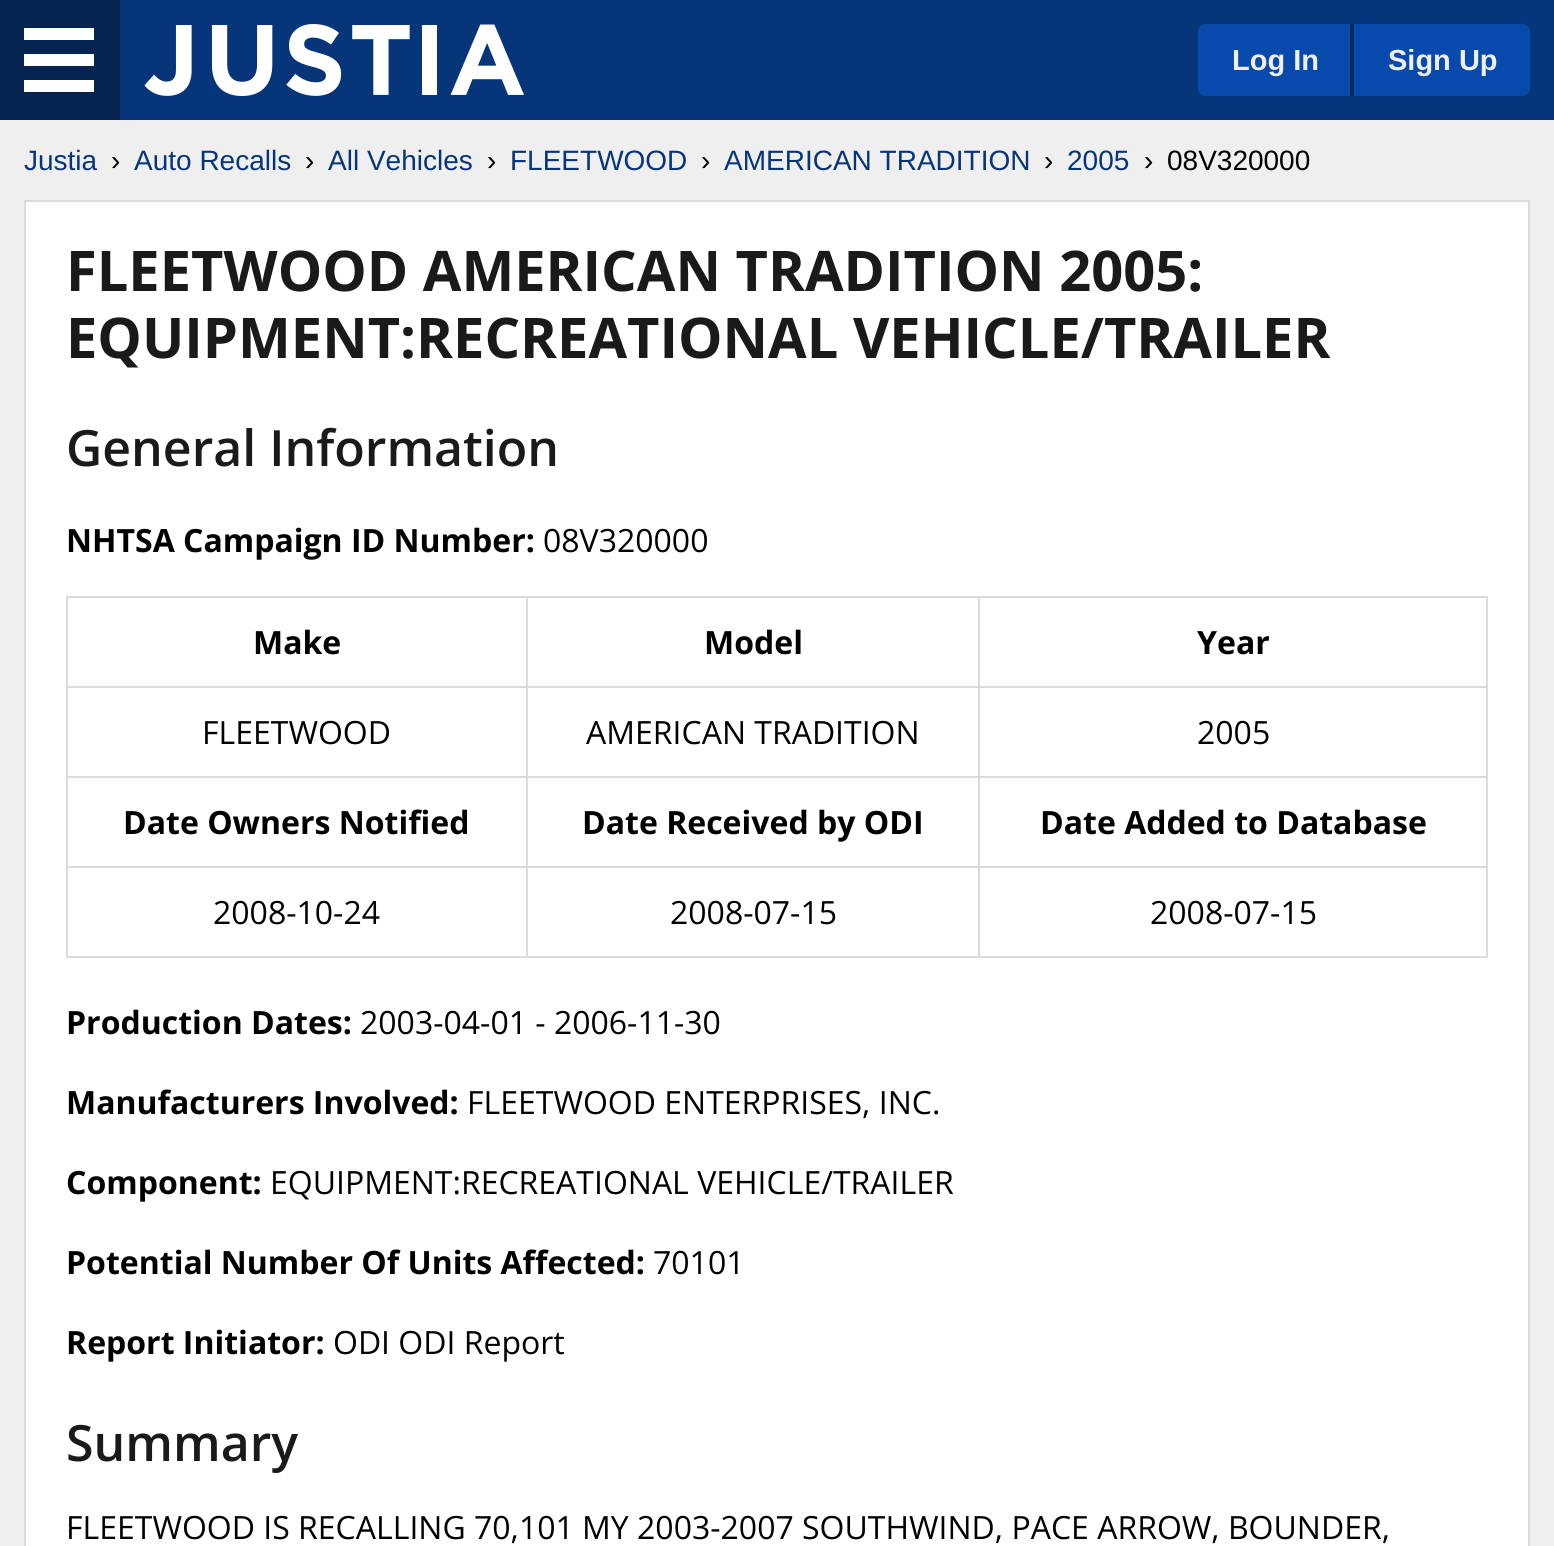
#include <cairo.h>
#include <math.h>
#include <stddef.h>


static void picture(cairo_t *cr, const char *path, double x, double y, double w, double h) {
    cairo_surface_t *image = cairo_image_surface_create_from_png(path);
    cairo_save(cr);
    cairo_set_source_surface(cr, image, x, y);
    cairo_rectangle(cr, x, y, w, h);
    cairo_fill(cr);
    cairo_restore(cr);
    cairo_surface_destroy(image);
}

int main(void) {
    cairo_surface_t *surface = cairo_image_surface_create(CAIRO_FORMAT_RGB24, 1554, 1546);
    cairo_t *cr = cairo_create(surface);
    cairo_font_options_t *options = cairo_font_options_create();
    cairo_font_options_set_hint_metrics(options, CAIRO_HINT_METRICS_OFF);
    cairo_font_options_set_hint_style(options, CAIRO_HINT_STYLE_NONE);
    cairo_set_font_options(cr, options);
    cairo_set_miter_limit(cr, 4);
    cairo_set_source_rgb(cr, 0.937, 0.937, 0.937);
    cairo_paint(cr);
    cairo_set_source_rgb(cr, 0.024, 0.208, 0.478);
    cairo_rectangle(cr, 120, 0, 1434, 120);
    cairo_fill(cr);
    cairo_set_source_rgb(cr, 0.02, 0.141, 0.314);
    cairo_rectangle(cr, 0, 0, 120, 120);
    cairo_fill(cr);
    cairo_set_source_rgb(cr, 1, 1, 1);
    cairo_rectangle(cr, 24, 28, 70, 12);
    cairo_fill(cr);
    cairo_rectangle(cr, 24, 54, 70, 12);
    cairo_fill(cr);
    cairo_rectangle(cr, 24, 80, 70, 12);
    cairo_fill(cr);
    picture(cr, "img1.png", 144, 24, 380, 72);
    cairo_set_source_rgb(cr, 0.031, 0.29, 0.671);
    cairo_new_path(cr);
    cairo_move_to(cr, 1206, 24);
    cairo_line_to(cr, 1350, 24);
    cairo_line_to(cr, 1350, 96);
    cairo_line_to(cr, 1206, 96);
    cairo_curve_to(cr, 1201.5, 96, 1198, 92.5, 1198, 88);
    cairo_line_to(cr, 1198, 32);
    cairo_curve_to(cr, 1198, 27.5, 1201.5, 24, 1206, 24);
    cairo_close_path(cr);
    cairo_fill(cr);
    cairo_select_font_face(cr, "Liberation Sans", CAIRO_FONT_SLANT_NORMAL, CAIRO_FONT_WEIGHT_BOLD);
    cairo_set_font_size(cr, 29);
    cairo_set_source_rgb(cr, 0.937, 0.937, 0.937);
    cairo_move_to(cr, 1232, 70);
    cairo_show_text(cr, "Log In");
    cairo_set_source_rgb(cr, 0.031, 0.29, 0.671);
    cairo_new_path(cr);
    cairo_move_to(cr, 1350, 24);
    cairo_line_to(cr, 1522, 24);
    cairo_curve_to(cr, 1526.5, 24, 1530, 27.5, 1530, 32);
    cairo_line_to(cr, 1530, 88);
    cairo_curve_to(cr, 1530, 92.5, 1526.5, 96, 1522, 96);
    cairo_line_to(cr, 1350, 96);
    cairo_close_path(cr);
    cairo_fill(cr);
    cairo_set_source_rgb(cr, 0.02, 0.165, 0.376);
    cairo_rectangle(cr, 1350, 24, 4, 72);
    cairo_fill(cr);
    cairo_set_source_rgb(cr, 0.937, 0.937, 0.937);
    cairo_move_to(cr, 1388, 70);
    cairo_show_text(cr, "Sign Up");
    cairo_select_font_face(cr, "Liberation Sans", CAIRO_FONT_SLANT_NORMAL, CAIRO_FONT_WEIGHT_NORMAL);
    cairo_set_font_size(cr, 28);
    cairo_set_source_rgb(cr, 0.024, 0.208, 0.478);
    cairo_move_to(cr, 24, 170);
    cairo_show_text(cr, "Justia");
    cairo_set_source_rgb(cr, 0, 0, 0);
    cairo_move_to(cr, 111, 170);
    cairo_show_text(cr, "›");
    cairo_set_source_rgb(cr, 0.024, 0.208, 0.478);
    cairo_move_to(cr, 134, 170);
    cairo_show_text(cr, "Auto Recalls");
    cairo_set_source_rgb(cr, 0, 0, 0);
    cairo_move_to(cr, 305, 170);
    cairo_show_text(cr, "›");
    cairo_set_source_rgb(cr, 0.024, 0.208, 0.478);
    cairo_move_to(cr, 328, 170);
    cairo_show_text(cr, "All Vehicles");
    cairo_set_source_rgb(cr, 0, 0, 0);
    cairo_move_to(cr, 487, 170);
    cairo_show_text(cr, "›");
    cairo_set_source_rgb(cr, 0.024, 0.208, 0.478);
    cairo_move_to(cr, 510, 170);
    cairo_show_text(cr, "FLEETWOOD");
    cairo_set_source_rgb(cr, 0, 0, 0);
    cairo_move_to(cr, 701, 170);
    cairo_show_text(cr, "›");
    cairo_set_source_rgb(cr, 0.024, 0.208, 0.478);
    cairo_move_to(cr, 724, 170);
    cairo_show_text(cr, "AMERICAN TRADITION");
    cairo_set_source_rgb(cr, 0, 0, 0);
    cairo_move_to(cr, 1044, 170);
    cairo_show_text(cr, "›");
    cairo_set_source_rgb(cr, 0.024, 0.208, 0.478);
    cairo_move_to(cr, 1067, 170);
    cairo_show_text(cr, "2005");
    cairo_set_source_rgb(cr, 0, 0, 0);
    cairo_move_to(cr, 1144, 170);
    cairo_show_text(cr, "›");
    cairo_move_to(cr, 1167, 170);
    cairo_show_text(cr, "08V320000");
    cairo_set_source_rgb(cr, 1, 1, 1);
    cairo_rectangle(cr, 25, 201, 1504, 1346);
    cairo_fill_preserve(cr);
    cairo_set_source_rgb(cr, 0.859, 0.859, 0.859);
    cairo_stroke(cr);
    cairo_select_font_face(cr, "Open Sans", CAIRO_FONT_SLANT_NORMAL, CAIRO_FONT_WEIGHT_BOLD);
    cairo_set_font_size(cr, 56);
    cairo_set_source_rgb(cr, 0.102, 0.102, 0.102);
    cairo_move_to(cr, 66, 291);
    cairo_show_text(cr, "FLEETWOOD AMERICAN TRADITION 2005:");
    cairo_move_to(cr, 66, 358);
    cairo_show_text(cr, "EQUIPMENT:RECREATIONAL VEHICLE/TRAILER");
    cairo_select_font_face(cr, "Open Sans SemiBold", CAIRO_FONT_SLANT_NORMAL, CAIRO_FONT_WEIGHT_NORMAL);
    cairo_set_font_size(cr, 50);
    cairo_move_to(cr, 66, 466);
    cairo_show_text(cr, "General Information");
    cairo_select_font_face(cr, "Open Sans", CAIRO_FONT_SLANT_NORMAL, CAIRO_FONT_WEIGHT_BOLD);
    cairo_set_font_size(cr, 32);
    cairo_set_source_rgb(cr, 0, 0, 0);
    cairo_move_to(cr, 66, 552);
    cairo_show_text(cr, "NHTSA Campaign ID Number:");
    cairo_select_font_face(cr, "Open Sans", CAIRO_FONT_SLANT_NORMAL, CAIRO_FONT_WEIGHT_NORMAL);
    cairo_move_to(cr, 543, 552);
    cairo_show_text(cr, "08V320000");
    cairo_set_source_rgb(cr, 0.859, 0.859, 0.859);
    cairo_rectangle(cr, 66, 596, 1422, 2);
    cairo_fill(cr);
    cairo_rectangle(cr, 66, 686, 1422, 2);
    cairo_fill(cr);
    cairo_rectangle(cr, 66, 776, 1422, 2);
    cairo_fill(cr);
    cairo_rectangle(cr, 66, 866, 1422, 2);
    cairo_fill(cr);
    cairo_rectangle(cr, 1486, 866, 2, 92);
    cairo_fill(cr);
    cairo_rectangle(cr, 1486, 776, 2, 92);
    cairo_fill(cr);
    cairo_rectangle(cr, 1486, 686, 2, 92);
    cairo_fill(cr);
    cairo_rectangle(cr, 1486, 596, 2, 92);
    cairo_fill(cr);
    cairo_rectangle(cr, 66, 956, 1422, 2);
    cairo_fill(cr);
    cairo_rectangle(cr, 66, 866, 2, 92);
    cairo_fill(cr);
    cairo_rectangle(cr, 66, 776, 2, 92);
    cairo_fill(cr);
    cairo_rectangle(cr, 66, 686, 2, 92);
    cairo_fill(cr);
    cairo_rectangle(cr, 66, 596, 2, 92);
    cairo_fill(cr);
    cairo_select_font_face(cr, "Open Sans", CAIRO_FONT_SLANT_NORMAL, CAIRO_FONT_WEIGHT_BOLD);
    cairo_set_source_rgb(cr, 0, 0, 0);
    cairo_move_to(cr, 253, 654);
    cairo_show_text(cr, "Make");
    cairo_move_to(cr, 704, 654);
    cairo_show_text(cr, "Model");
    cairo_move_to(cr, 1197, 654);
    cairo_show_text(cr, "Year");
    cairo_select_font_face(cr, "Open Sans", CAIRO_FONT_SLANT_NORMAL, CAIRO_FONT_WEIGHT_NORMAL);
    cairo_move_to(cr, 202, 744);
    cairo_show_text(cr, "FLEETWOOD");
    cairo_move_to(cr, 586, 744);
    cairo_show_text(cr, "AMERICAN TRADITION");
    cairo_move_to(cr, 1197, 744);
    cairo_show_text(cr, "2005");
    cairo_select_font_face(cr, "Open Sans", CAIRO_FONT_SLANT_NORMAL, CAIRO_FONT_WEIGHT_BOLD);
    cairo_move_to(cr, 123, 834);
    cairo_show_text(cr, "Date Owners Notified");
    cairo_move_to(cr, 582, 834);
    cairo_show_text(cr, "Date Received by ODI");
    cairo_move_to(cr, 1040, 834);
    cairo_show_text(cr, "Date Added to Database");
    cairo_select_font_face(cr, "Open Sans", CAIRO_FONT_SLANT_NORMAL, CAIRO_FONT_WEIGHT_NORMAL);
    cairo_move_to(cr, 213, 924);
    cairo_show_text(cr, "2008-10-24");
    cairo_set_source_rgb(cr, 0.859, 0.859, 0.859);
    cairo_rectangle(cr, 526, 596, 2, 362);
    cairo_fill(cr);
    cairo_set_source_rgb(cr, 0, 0, 0);
    cairo_move_to(cr, 670, 924);
    cairo_show_text(cr, "2008-07-15");
    cairo_set_source_rgb(cr, 0.859, 0.859, 0.859);
    cairo_rectangle(cr, 978, 596, 2, 362);
    cairo_fill(cr);
    cairo_set_source_rgb(cr, 0, 0, 0);
    cairo_move_to(cr, 1150, 924);
    cairo_show_text(cr, "2008-07-15");
    cairo_select_font_face(cr, "Open Sans", CAIRO_FONT_SLANT_NORMAL, CAIRO_FONT_WEIGHT_BOLD);
    cairo_move_to(cr, 66, 1034);
    cairo_show_text(cr, "Production Dates:");
    cairo_select_font_face(cr, "Open Sans", CAIRO_FONT_SLANT_NORMAL, CAIRO_FONT_WEIGHT_NORMAL);
    cairo_move_to(cr, 360, 1034);
    cairo_show_text(cr, "2003-04-01 - 2006-11-30");
    cairo_select_font_face(cr, "Open Sans", CAIRO_FONT_SLANT_NORMAL, CAIRO_FONT_WEIGHT_BOLD);
    cairo_move_to(cr, 66, 1114);
    cairo_show_text(cr, "Manufacturers Involved:");
    cairo_select_font_face(cr, "Open Sans", CAIRO_FONT_SLANT_NORMAL, CAIRO_FONT_WEIGHT_NORMAL);
    cairo_move_to(cr, 467, 1114);
    cairo_show_text(cr, "FLEETWOOD ENTERPRISES, INC.");
    cairo_select_font_face(cr, "Open Sans", CAIRO_FONT_SLANT_NORMAL, CAIRO_FONT_WEIGHT_BOLD);
    cairo_move_to(cr, 66, 1194);
    cairo_show_text(cr, "Component:");
    cairo_select_font_face(cr, "Open Sans", CAIRO_FONT_SLANT_NORMAL, CAIRO_FONT_WEIGHT_NORMAL);
    cairo_move_to(cr, 270, 1194);
    cairo_show_text(cr, "EQUIPMENT:RECREATIONAL VEHICLE/TRAILER");
    cairo_select_font_face(cr, "Open Sans", CAIRO_FONT_SLANT_NORMAL, CAIRO_FONT_WEIGHT_BOLD);
    cairo_move_to(cr, 66, 1274);
    cairo_show_text(cr, "Potential Number Of Units Affected:");
    cairo_select_font_face(cr, "Open Sans", CAIRO_FONT_SLANT_NORMAL, CAIRO_FONT_WEIGHT_NORMAL);
    cairo_move_to(cr, 653, 1274);
    cairo_show_text(cr, "70101");
    cairo_select_font_face(cr, "Open Sans", CAIRO_FONT_SLANT_NORMAL, CAIRO_FONT_WEIGHT_BOLD);
    cairo_move_to(cr, 66, 1354);
    cairo_show_text(cr, "Report Initiator:");
    cairo_select_font_face(cr, "Open Sans", CAIRO_FONT_SLANT_NORMAL, CAIRO_FONT_WEIGHT_NORMAL);
    cairo_move_to(cr, 333, 1354);
    cairo_show_text(cr, "ODI ODI Report");
    cairo_select_font_face(cr, "Open Sans SemiBold", CAIRO_FONT_SLANT_NORMAL, CAIRO_FONT_WEIGHT_NORMAL);
    cairo_set_font_size(cr, 50);
    cairo_set_source_rgb(cr, 0.102, 0.102, 0.102);
    cairo_move_to(cr, 66, 1461);
    cairo_show_text(cr, "Summary");
    cairo_select_font_face(cr, "Open Sans", CAIRO_FONT_SLANT_NORMAL, CAIRO_FONT_WEIGHT_NORMAL);
    cairo_set_font_size(cr, 32);
    cairo_set_source_rgb(cr, 0, 0, 0);
    cairo_move_to(cr, 66, 1539);
    cairo_show_text(cr, "FLEETWOOD IS RECALLING 70,101 MY 2003-2007 SOUTHWIND, PACE ARROW, BOUNDER,");
    cairo_surface_write_to_png(surface, "page.png");
    cairo_font_options_destroy(options);
    cairo_destroy(cr);
    cairo_surface_destroy(surface);
    return 0;
}
